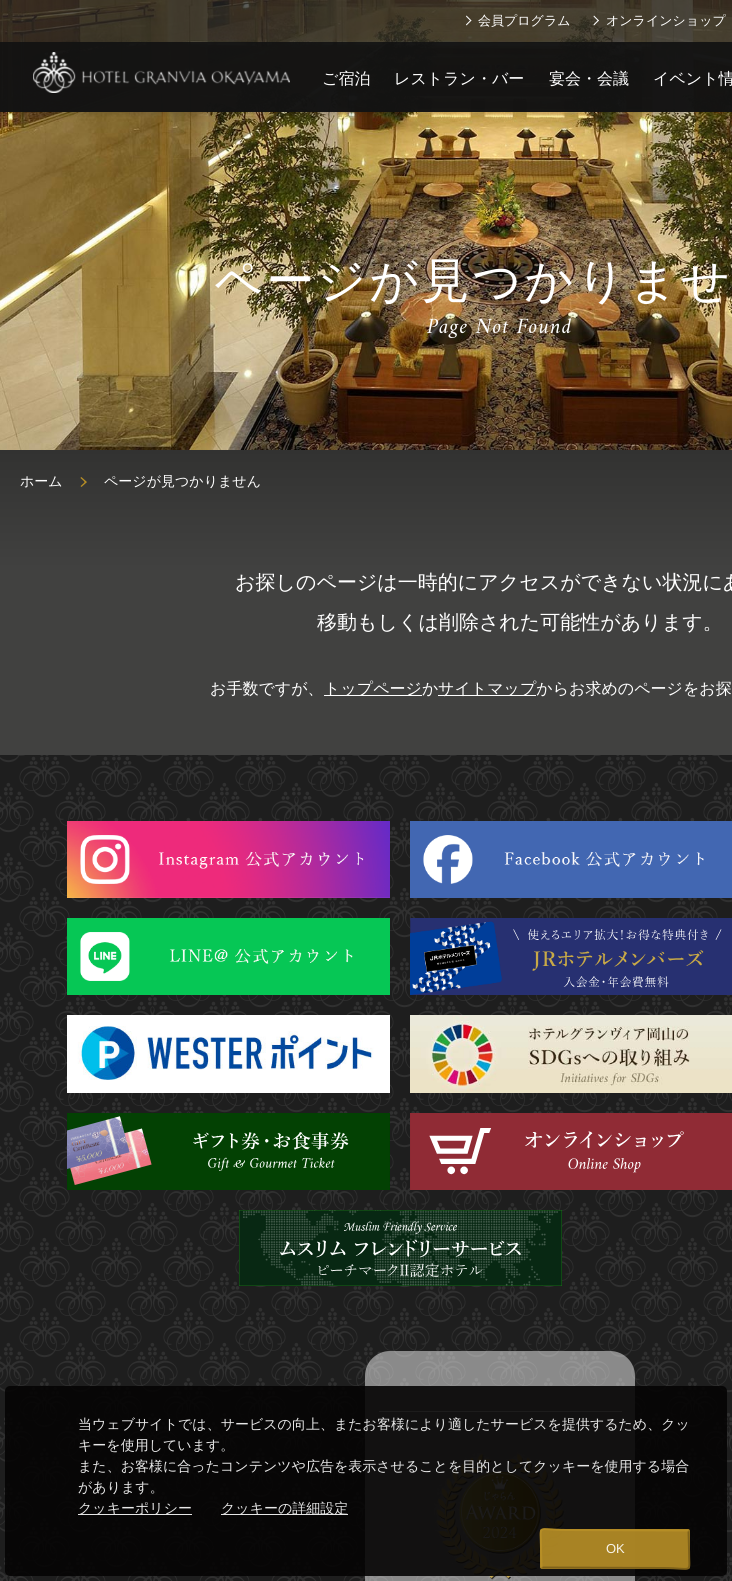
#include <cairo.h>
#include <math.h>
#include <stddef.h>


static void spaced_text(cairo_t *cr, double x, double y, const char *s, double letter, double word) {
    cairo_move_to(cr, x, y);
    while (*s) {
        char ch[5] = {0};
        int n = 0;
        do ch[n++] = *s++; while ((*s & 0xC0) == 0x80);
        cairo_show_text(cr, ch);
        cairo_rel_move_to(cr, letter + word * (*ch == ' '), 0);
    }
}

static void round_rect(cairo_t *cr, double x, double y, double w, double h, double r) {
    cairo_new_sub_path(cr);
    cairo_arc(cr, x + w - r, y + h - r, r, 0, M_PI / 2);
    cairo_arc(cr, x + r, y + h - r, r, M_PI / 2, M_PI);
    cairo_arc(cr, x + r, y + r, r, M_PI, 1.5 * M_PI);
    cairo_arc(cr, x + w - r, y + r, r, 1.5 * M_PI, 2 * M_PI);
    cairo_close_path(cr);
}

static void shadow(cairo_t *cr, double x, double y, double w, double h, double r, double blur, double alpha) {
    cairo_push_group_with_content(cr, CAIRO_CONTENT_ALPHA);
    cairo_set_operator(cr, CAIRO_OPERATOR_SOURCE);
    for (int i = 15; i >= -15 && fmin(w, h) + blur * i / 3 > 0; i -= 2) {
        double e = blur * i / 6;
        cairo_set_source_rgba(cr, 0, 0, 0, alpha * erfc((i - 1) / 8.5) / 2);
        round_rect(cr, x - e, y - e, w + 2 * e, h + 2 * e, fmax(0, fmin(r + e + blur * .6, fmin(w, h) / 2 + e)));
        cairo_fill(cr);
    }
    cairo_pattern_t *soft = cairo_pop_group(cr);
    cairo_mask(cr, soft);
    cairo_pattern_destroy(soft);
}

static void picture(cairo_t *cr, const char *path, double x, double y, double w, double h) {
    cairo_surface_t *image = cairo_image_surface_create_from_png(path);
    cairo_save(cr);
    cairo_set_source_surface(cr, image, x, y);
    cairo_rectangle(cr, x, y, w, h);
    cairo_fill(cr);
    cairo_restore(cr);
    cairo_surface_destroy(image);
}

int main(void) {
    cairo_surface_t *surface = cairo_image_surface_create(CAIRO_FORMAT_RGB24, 732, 1581);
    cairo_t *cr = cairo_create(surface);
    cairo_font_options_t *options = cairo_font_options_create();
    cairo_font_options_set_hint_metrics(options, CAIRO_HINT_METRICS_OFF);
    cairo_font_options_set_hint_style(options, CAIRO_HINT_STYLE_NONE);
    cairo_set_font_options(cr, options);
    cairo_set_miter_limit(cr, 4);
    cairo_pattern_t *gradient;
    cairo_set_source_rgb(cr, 1, 1, 1);
    cairo_paint(cr);
    picture(cr, "img2.png", 0, 0, 732, 450);
    cairo_save(cr);
    cairo_rectangle(cr, 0, 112, 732, 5);
    cairo_clip(cr);
    cairo_set_source_rgb(cr, 0, 0, 0);
    shadow(cr, 0, 1, 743, 112, 0, 3.5, 0.17);
    cairo_restore(cr);
    cairo_set_source_rgba(cr, 0.149, 0.149, 0.149, 0.75);
    cairo_rectangle(cr, 0, 0, 732, 42);
    cairo_fill(cr);
    cairo_set_source_rgb(cr, 1, 1, 1);
    cairo_new_path(cr);
    cairo_move_to(cr, 466.5, 15.5);
    cairo_line_to(cr, 471.5, 20.5);
    cairo_line_to(cr, 470.5, 21);
    cairo_line_to(cr, 466, 16.5);
    cairo_close_path(cr);
    cairo_fill(cr);
    cairo_new_path(cr);
    cairo_move_to(cr, 470.5, 20);
    cairo_line_to(cr, 471.5, 20.5);
    cairo_line_to(cr, 466.5, 25.5);
    cairo_line_to(cr, 466, 24.5);
    cairo_close_path(cr);
    cairo_fill(cr);
    cairo_select_font_face(cr, "WenQuanYi Zen Hei Medium", CAIRO_FONT_SLANT_NORMAL, CAIRO_FONT_WEIGHT_NORMAL);
    cairo_set_font_size(cr, 13);
    cairo_move_to(cr, 478, 25);
    cairo_show_text(cr, "会員プログラム");
    cairo_new_path(cr);
    cairo_move_to(cr, 594, 15.5);
    cairo_line_to(cr, 599, 20.5);
    cairo_line_to(cr, 598, 21);
    cairo_line_to(cr, 593.5, 16.5);
    cairo_close_path(cr);
    cairo_fill(cr);
    cairo_new_path(cr);
    cairo_move_to(cr, 598, 20);
    cairo_line_to(cr, 599, 20.5);
    cairo_line_to(cr, 594, 25.5);
    cairo_line_to(cr, 593.5, 24.5);
    cairo_close_path(cr);
    cairo_fill(cr);
    cairo_move_to(cr, 606, 25);
    cairo_show_text(cr, "オンラインショップ");
    cairo_set_source_rgba(cr, 0.075, 0.075, 0.075, 0.98);
    cairo_rectangle(cr, 0, 42, 732, 70);
    cairo_fill(cr);
    picture(cr, "img1.png", 33, 52, 257, 41);
    cairo_set_font_size(cr, 16);
    cairo_set_source_rgb(cr, 1, 1, 1);
    cairo_move_to(cr, 322, 84);
    cairo_show_text(cr, "ご宿泊");
    cairo_move_to(cr, 394, 84);
    cairo_show_text(cr, "レストラン・バー");
    cairo_move_to(cr, 549, 84);
    cairo_show_text(cr, "宴会・会議");
    cairo_move_to(cr, 653, 84);
    cairo_show_text(cr, "イベント情");
    cairo_set_font_size(cr, 48);
    spaced_text(cr, 214, 297, "ページが見つかりませ", 3, 0);
    cairo_select_font_face(cr, "Amiri", CAIRO_FONT_SLANT_ITALIC, CAIRO_FONT_WEIGHT_NORMAL);
    cairo_set_font_size(cr, 22);
    spaced_text(cr, 427, 333, "Page Not Found", 1, 0);
    gradient = cairo_pattern_create_linear(500, 450, 500, 755);
    cairo_pattern_add_color_stop_rgba(gradient, 0, 0.196, 0.196, 0.192, 1);
    cairo_pattern_add_color_stop_rgba(gradient, 0.39, 0.255, 0.255, 0.251, 1);
    cairo_set_source(cr, gradient);
    cairo_pattern_destroy(gradient);
    cairo_rectangle(cr, 0, 450, 732, 305);
    cairo_fill(cr);
    cairo_select_font_face(cr, "WenQuanYi Zen Hei Medium", CAIRO_FONT_SLANT_NORMAL, CAIRO_FONT_WEIGHT_NORMAL);
    cairo_set_font_size(cr, 14);
    cairo_set_source_rgb(cr, 1, 1, 1);
    cairo_move_to(cr, 20, 486);
    cairo_show_text(cr, "ホーム");
    picture(cr, "img3.png", 80, 477, 7, 10);
    cairo_move_to(cr, 104, 486);
    cairo_show_text(cr, "ページが見つかりません");
    cairo_set_font_size(cr, 20);
    cairo_move_to(cr, 235, 589);
    cairo_show_text(cr, "お探しのページは一時的にアクセスができない状況にあ");
    cairo_move_to(cr, 317, 629);
    cairo_show_text(cr, "移動もしくは削除された可能性があります。");
    cairo_set_font_size(cr, 16);
    cairo_move_to(cr, 210, 694);
    cairo_show_text(cr, "お手数ですが、");
    cairo_rectangle(cr, 324, 695, 98, 1);
    cairo_fill(cr);
    cairo_move_to(cr, 324, 694);
    cairo_show_text(cr, "トップページか");
    cairo_rectangle(cr, 438, 695, 98, 1);
    cairo_fill(cr);
    cairo_move_to(cr, 438, 694);
    cairo_show_text(cr, "サイトマップからお求めのページをお探");
    picture(cr, "img4.png", 0, 755, 732, 826);
    picture(cr, "img5.png", 67, 821, 323, 77);
    picture(cr, "img6.png", 410, 821, 322, 77);
    picture(cr, "img7.png", 67, 918, 323, 77);
    picture(cr, "img8.png", 410, 918, 322, 77);
    picture(cr, "img9.png", 67, 1015, 323, 78);
    picture(cr, "img10.png", 410, 1015, 322, 78);
    picture(cr, "img11.png", 67, 1113, 323, 77);
    picture(cr, "img12.png", 410, 1113, 322, 77);
    picture(cr, "img13.png", 239, 1210, 323, 76);
    cairo_set_source_rgba(cr, 1, 1, 1, 0.48);
    round_rect(cr, 365, 1351, 270, 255, 25);
    cairo_fill(cr);
    cairo_set_source_rgb(cr, 1, 1, 1);
    cairo_rectangle(cr, 379, 1411, 243, 1);
    cairo_fill(cr);
    picture(cr, "img14.png", 434, 1452, 132, 128);
    cairo_set_source_rgba(cr, 0.02, 0.016, 0.016, 0.9);
    round_rect(cr, 5, 1386, 722, 190, 5);
    cairo_fill(cr);
    cairo_set_font_size(cr, 14);
    cairo_set_source_rgb(cr, 0.906, 0.906, 0.906);
    cairo_move_to(cr, 78, 1429);
    cairo_show_text(cr, "当ウェブサイトでは、サービスの向上、またお客様により適したサービスを提供するため、クッ");
    cairo_move_to(cr, 78, 1450);
    cairo_show_text(cr, "キーを使用しています。");
    cairo_move_to(cr, 78, 1471);
    cairo_show_text(cr, "また、お客様に合ったコンテンツや広告を表示させることを目的としてクッキーを使用する場合");
    cairo_move_to(cr, 78, 1492);
    cairo_show_text(cr, "があります。");
    cairo_set_source_rgb(cr, 0.902, 0.902, 0.902);
    cairo_rectangle(cr, 78, 1514, 114, 1);
    cairo_fill(cr);
    cairo_set_source_rgb(cr, 0.906, 0.906, 0.906);
    cairo_move_to(cr, 78, 1513);
    cairo_show_text(cr, "クッキーポリシー");
    cairo_set_source_rgb(cr, 0.902, 0.902, 0.902);
    cairo_rectangle(cr, 221, 1514, 127, 1);
    cairo_fill(cr);
    cairo_set_source_rgb(cr, 0.906, 0.906, 0.906);
    cairo_move_to(cr, 221, 1513);
    cairo_show_text(cr, "クッキーの詳細設定");
    cairo_set_source_rgba(cr, 0.722, 0.561, 0.149, 0.9);
    round_rect(cr, 540, 1529, 150, 40, 2);
    cairo_fill(cr);
    cairo_new_path(cr);
    cairo_move_to(cr, 688.5, 1530.5);
    cairo_line_to(cr, 689, 1549);
    cairo_curve_to(cr, 689, 1575.5, 694.5, 1568, 663.5, 1568);
    cairo_line_to(cr, 541.5, 1567.5);
    cairo_set_source_rgba(cr, 0.482, 0.373, 0.098, 0.9);
    cairo_stroke(cr);
    cairo_new_path(cr);
    cairo_move_to(cr, 541.5, 1567.5);
    cairo_line_to(cr, 541, 1549);
    cairo_curve_to(cr, 541, 1522.5, 535.5, 1530, 566.5, 1530);
    cairo_line_to(cr, 688.5, 1530.5);
    cairo_set_source_rgba(cr, 0.722, 0.561, 0.149, 0.9);
    cairo_stroke(cr);
    cairo_select_font_face(cr, "Liberation Sans", CAIRO_FONT_SLANT_NORMAL, CAIRO_FONT_WEIGHT_NORMAL);
    cairo_set_font_size(cr, 13);
    cairo_set_source_rgb(cr, 0.965, 0.953, 0.914);
    cairo_move_to(cr, 606, 1553);
    cairo_show_text(cr, "OK");
    cairo_surface_write_to_png(surface, "page.png");
    cairo_font_options_destroy(options);
    cairo_destroy(cr);
    cairo_surface_destroy(surface);
    return 0;
}
